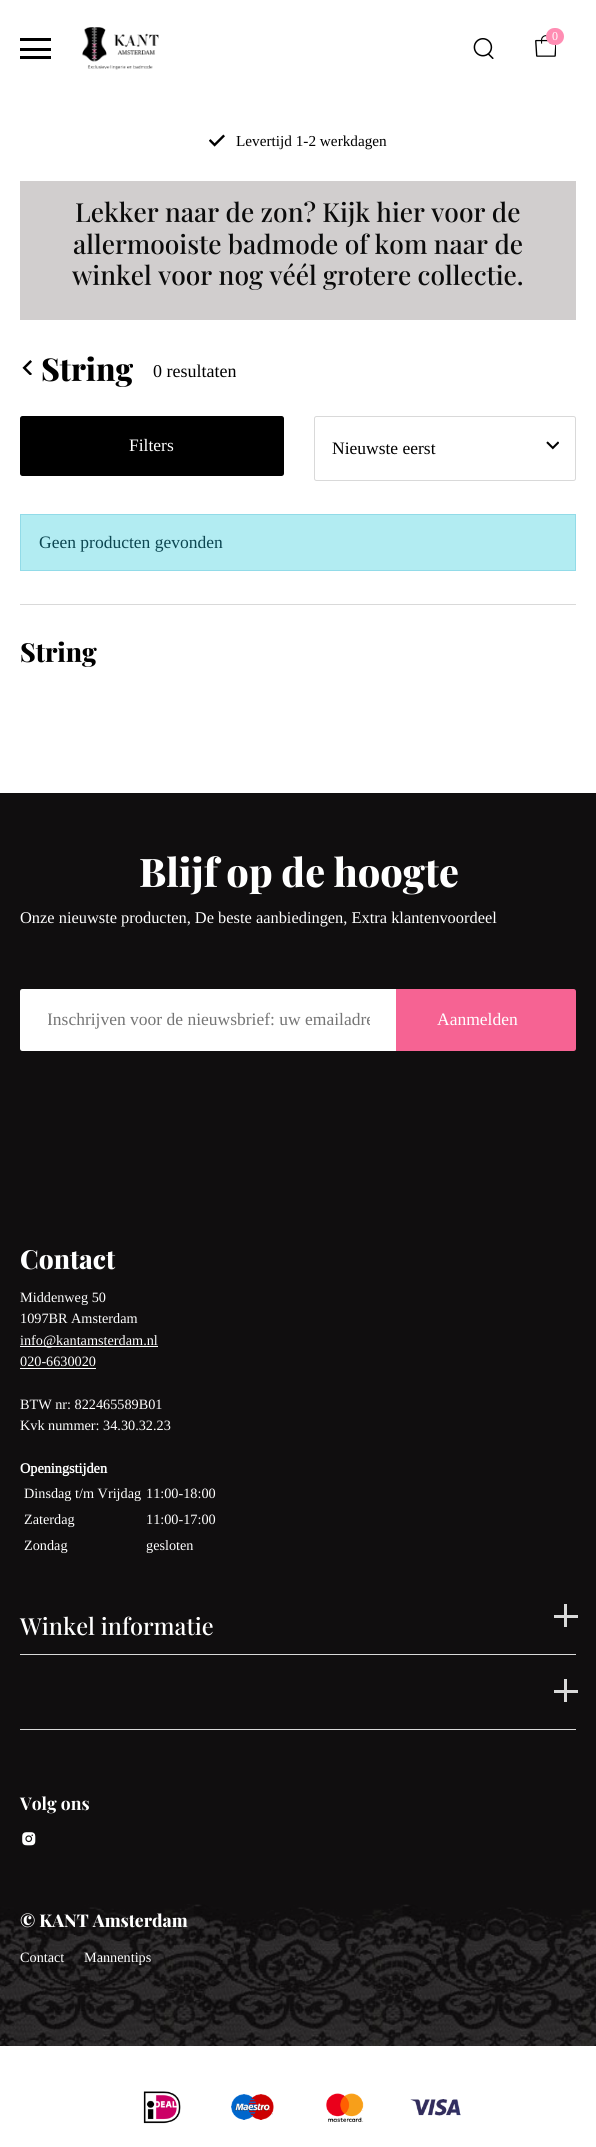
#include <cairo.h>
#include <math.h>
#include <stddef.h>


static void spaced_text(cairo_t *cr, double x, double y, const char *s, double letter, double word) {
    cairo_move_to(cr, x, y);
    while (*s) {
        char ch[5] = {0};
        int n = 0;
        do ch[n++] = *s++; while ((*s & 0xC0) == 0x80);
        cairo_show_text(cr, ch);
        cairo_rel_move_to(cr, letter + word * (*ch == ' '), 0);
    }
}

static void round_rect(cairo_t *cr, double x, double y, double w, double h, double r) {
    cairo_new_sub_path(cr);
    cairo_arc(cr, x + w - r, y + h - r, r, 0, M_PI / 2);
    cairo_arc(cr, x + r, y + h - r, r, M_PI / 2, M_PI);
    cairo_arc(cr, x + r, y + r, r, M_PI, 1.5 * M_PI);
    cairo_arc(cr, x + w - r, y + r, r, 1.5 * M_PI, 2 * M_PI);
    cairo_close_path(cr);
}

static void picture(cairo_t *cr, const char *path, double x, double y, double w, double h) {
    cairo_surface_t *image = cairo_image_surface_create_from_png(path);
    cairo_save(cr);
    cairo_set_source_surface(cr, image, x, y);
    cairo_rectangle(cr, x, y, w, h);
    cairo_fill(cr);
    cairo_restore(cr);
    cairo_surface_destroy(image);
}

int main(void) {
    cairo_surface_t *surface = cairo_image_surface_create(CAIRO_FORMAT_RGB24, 596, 2147);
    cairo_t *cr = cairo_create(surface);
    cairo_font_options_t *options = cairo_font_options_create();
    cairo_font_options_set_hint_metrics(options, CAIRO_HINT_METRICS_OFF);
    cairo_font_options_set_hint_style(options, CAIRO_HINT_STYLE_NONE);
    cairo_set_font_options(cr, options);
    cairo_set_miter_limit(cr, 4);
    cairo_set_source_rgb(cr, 1, 1, 1);
    cairo_paint(cr);
    picture(cr, "img1.png", 82, 27, 77, 43);
    picture(cr, "img2.png", 535, 35, 21, 22);
    cairo_set_source_rgb(cr, 1, 0.553, 0.702);
    round_rect(cr, 546, 28, 18, 17, 8.5);
    cairo_fill(cr);
    cairo_select_font_face(cr, "Tinos", CAIRO_FONT_SLANT_NORMAL, CAIRO_FONT_WEIGHT_NORMAL);
    cairo_set_font_size(cr, 12);
    cairo_set_source_rgb(cr, 1, 1, 1);
    cairo_move_to(cr, 552, 40);
    cairo_show_text(cr, "0");
    picture(cr, "img3.png", 473, 38, 21, 21);
    cairo_set_source_rgb(cr, 0, 0, 0);
    cairo_rectangle(cr, 20, 38, 31, 3);
    cairo_fill(cr);
    cairo_rectangle(cr, 20, 48, 31, 3);
    cairo_fill(cr);
    cairo_rectangle(cr, 20, 56, 31, 3);
    cairo_fill(cr);
    picture(cr, "img4.png", 209, 134, 16, 13);
    cairo_set_font_size(cr, 15.25);
    cairo_move_to(cr, 236, 146);
    cairo_show_text(cr, "Levertijd 1-2 werkdagen");
    cairo_set_source_rgb(cr, 0.82, 0.808, 0.808);
    cairo_rectangle(cr, 20, 181, 556, 139);
    cairo_fill(cr);
    cairo_select_font_face(cr, "Playfair Display Medium", CAIRO_FONT_SLANT_NORMAL, CAIRO_FONT_WEIGHT_NORMAL);
    cairo_set_font_size(cr, 26.25);
    cairo_set_source_rgb(cr, 0.043, 0.043, 0.043);
    cairo_move_to(cr, 75, 222);
    cairo_show_text(cr, "Lekker naar de zon? Kijk hier voor de");
    cairo_move_to(cr, 73, 254);
    cairo_show_text(cr, "allermooiste badmode of kom naar de");
    cairo_move_to(cr, 72, 285);
    cairo_show_text(cr, "winkel voor nog véél grotere collectie.");
    picture(cr, "img5.png", 22, 360, 10, 15);
    cairo_select_font_face(cr, "Playfair Display ExtraBold", CAIRO_FONT_SLANT_NORMAL, CAIRO_FONT_WEIGHT_NORMAL);
    cairo_set_font_size(cr, 31.5);
    cairo_set_source_rgb(cr, 0, 0, 0);
    cairo_move_to(cr, 41, 381);
    cairo_show_text(cr, "String");
    cairo_select_font_face(cr, "Tinos", CAIRO_FONT_SLANT_NORMAL, CAIRO_FONT_WEIGHT_NORMAL);
    cairo_set_font_size(cr, 18);
    cairo_move_to(cr, 153, 377);
    cairo_show_text(cr, "0 resultaten");
    round_rect(cr, 20, 416, 264, 60, 2.5);
    cairo_fill(cr);
    cairo_set_font_size(cr, 17.5);
    cairo_set_source_rgb(cr, 1, 1, 1);
    cairo_move_to(cr, 129, 451);
    cairo_show_text(cr, "Filters");
    round_rect(cr, 314.5, 416.5, 261, 64, 2);
    cairo_set_source_rgb(cr, 0.851, 0.851, 0.851);
    cairo_set_line_width(cr, 1);
    cairo_stroke(cr);
    cairo_set_source_rgb(cr, 0, 0, 0);
    cairo_move_to(cr, 332, 454);
    cairo_show_text(cr, "Nieuwste eerst");
    picture(cr, "img6.png", 546, 441, 13, 9);
    cairo_set_source_rgb(cr, 0.698, 0.922, 0.949);
    cairo_rectangle(cr, 20.5, 514.5, 555, 56);
    cairo_fill_preserve(cr);
    cairo_set_source_rgb(cr, 0.573, 0.859, 0.91);
    cairo_stroke(cr);
    cairo_set_source_rgb(cr, 0.047, 0.275, 0.318);
    cairo_move_to(cr, 39, 548);
    cairo_show_text(cr, "Geen producten gevonden");
    cairo_set_source_rgb(cr, 0.851, 0.851, 0.851);
    cairo_rectangle(cr, 20, 604, 556, 1);
    cairo_fill(cr);
    cairo_select_font_face(cr, "Playfair Display ExtraBold", CAIRO_FONT_SLANT_NORMAL, CAIRO_FONT_WEIGHT_NORMAL);
    cairo_set_font_size(cr, 26.25);
    cairo_set_source_rgb(cr, 0, 0, 0);
    cairo_move_to(cr, 20, 662);
    cairo_show_text(cr, "String");
    cairo_set_source_rgb(cr, 0.063, 0.055, 0.059);
    cairo_rectangle(cr, 0, 793, 596, 1111);
    cairo_fill(cr);
    cairo_set_font_size(cr, 39.5);
    cairo_set_source_rgb(cr, 1, 1, 1);
    spaced_text(cr, 139, 887, "Blijf op de hoogte", 0, -0.5);
    cairo_select_font_face(cr, "Tinos", CAIRO_FONT_SLANT_NORMAL, CAIRO_FONT_WEIGHT_NORMAL);
    cairo_set_font_size(cr, 16.4);
    cairo_move_to(cr, 20, 923);
    cairo_show_text(cr, "Onze nieuwste producten, De beste aanbiedingen, Extra klantenvoordeel");
    cairo_new_path(cr);
    cairo_move_to(cr, 22.5, 989);
    cairo_line_to(cr, 396, 989);
    cairo_line_to(cr, 396, 1051);
    cairo_line_to(cr, 22.5, 1051);
    cairo_curve_to(cr, 21, 1051, 20, 1050, 20, 1048.5);
    cairo_line_to(cr, 20, 991.5);
    cairo_curve_to(cr, 20, 990, 21, 989, 22.5, 989);
    cairo_close_path(cr);
    cairo_fill(cr);
    cairo_save(cr);
    cairo_rectangle(cr, 48, 1010, 322, 20);
    cairo_clip(cr);
    cairo_set_font_size(cr, 17.5);
    cairo_set_source_rgb(cr, 0.459, 0.459, 0.459);
    cairo_move_to(cr, 47, 1025);
    cairo_show_text(cr, "Inschrijven voor de nieuwsbrief: uw emailadre");
    cairo_restore(cr);
    cairo_set_source_rgb(cr, 0.961, 0.388, 0.576);
    cairo_new_path(cr);
    cairo_move_to(cr, 396, 989);
    cairo_line_to(cr, 573.5, 989);
    cairo_curve_to(cr, 575, 989, 576, 990, 576, 991.5);
    cairo_line_to(cr, 576, 1048.5);
    cairo_curve_to(cr, 576, 1050, 575, 1051, 573.5, 1051);
    cairo_line_to(cr, 396, 1051);
    cairo_close_path(cr);
    cairo_fill(cr);
    cairo_set_font_size(cr, 17.5);
    cairo_set_source_rgb(cr, 1, 1, 1);
    cairo_move_to(cr, 437, 1025);
    cairo_show_text(cr, "Aanmelden");
    picture(cr, "img7.png", 0, 1904, 596, 142);
    cairo_select_font_face(cr, "Playfair Display ExtraBold", CAIRO_FONT_SLANT_NORMAL, CAIRO_FONT_WEIGHT_NORMAL);
    cairo_set_font_size(cr, 26.25);
    cairo_move_to(cr, 20, 1269);
    cairo_show_text(cr, "Contact");
    cairo_select_font_face(cr, "Tinos", CAIRO_FONT_SLANT_NORMAL, CAIRO_FONT_WEIGHT_NORMAL);
    cairo_set_font_size(cr, 14.25);
    cairo_move_to(cr, 20, 1302);
    cairo_show_text(cr, "Middenweg 50");
    cairo_move_to(cr, 20, 1323);
    cairo_show_text(cr, "1097BR Amsterdam");
    cairo_rectangle(cr, 20, 1346, 138, 1);
    cairo_fill(cr);
    cairo_move_to(cr, 20, 1345);
    cairo_show_text(cr, "info@kantamsterdam.nl");
    cairo_move_to(cr, 20, 1366);
    cairo_show_text(cr, "020-6630020");
    cairo_rectangle(cr, 20, 1368, 76, 1);
    cairo_fill(cr);
    cairo_move_to(cr, 20, 1409);
    cairo_show_text(cr, "BTW nr: 822465589B01");
    cairo_move_to(cr, 20, 1430);
    cairo_show_text(cr, "Kvk nummer: 34.30.32.23");
    cairo_select_font_face(cr, "Tinos", CAIRO_FONT_SLANT_NORMAL, CAIRO_FONT_WEIGHT_BOLD);
    cairo_move_to(cr, 20, 1473);
    cairo_show_text(cr, "Openingstijden");
    cairo_select_font_face(cr, "Tinos", CAIRO_FONT_SLANT_NORMAL, CAIRO_FONT_WEIGHT_NORMAL);
    cairo_move_to(cr, 24, 1498);
    cairo_show_text(cr, "Dinsdag t/m Vrijdag");
    cairo_move_to(cr, 146, 1498);
    cairo_show_text(cr, "11:00-18:00");
    cairo_move_to(cr, 24, 1524);
    cairo_show_text(cr, "Zaterdag");
    cairo_move_to(cr, 146, 1524);
    cairo_show_text(cr, "11:00-17:00");
    cairo_move_to(cr, 24, 1550);
    cairo_show_text(cr, "Zondag");
    cairo_move_to(cr, 146, 1550);
    cairo_show_text(cr, "gesloten");
    cairo_set_source_rgb(cr, 0.851, 0.851, 0.851);
    cairo_rectangle(cr, 20, 1654, 556, 1);
    cairo_fill(cr);
    cairo_select_font_face(cr, "Playfair Display Medium", CAIRO_FONT_SLANT_NORMAL, CAIRO_FONT_WEIGHT_NORMAL);
    cairo_set_font_size(cr, 23.5);
    cairo_set_source_rgb(cr, 1, 1, 1);
    cairo_move_to(cr, 20, 1635);
    cairo_show_text(cr, "Winkel informatie");
    cairo_set_source_rgb(cr, 0.851, 0.851, 0.851);
    cairo_rectangle(cr, 554, 1615, 24, 3);
    cairo_fill(cr);
    cairo_rectangle(cr, 564, 1604, 3, 23);
    cairo_fill(cr);
    cairo_rectangle(cr, 20, 1729, 556, 1);
    cairo_fill(cr);
    cairo_rectangle(cr, 554, 1690, 24, 3);
    cairo_fill(cr);
    cairo_rectangle(cr, 564, 1679, 3, 23);
    cairo_fill(cr);
    cairo_select_font_face(cr, "Playfair Display", CAIRO_FONT_SLANT_NORMAL, CAIRO_FONT_WEIGHT_BOLD);
    cairo_set_font_size(cr, 17.5);
    cairo_set_source_rgb(cr, 1, 1, 1);
    cairo_move_to(cr, 20, 1810);
    cairo_show_text(cr, "Volg ons");
    picture(cr, "img8.png", 22, 1832, 14, 14);
    cairo_select_font_face(cr, "Playfair Display ExtraBold", CAIRO_FONT_SLANT_NORMAL, CAIRO_FONT_WEIGHT_NORMAL);
    cairo_move_to(cr, 20, 1927);
    cairo_show_text(cr, "© KANT Amsterdam");
    cairo_select_font_face(cr, "Tinos", CAIRO_FONT_SLANT_NORMAL, CAIRO_FONT_WEIGHT_NORMAL);
    cairo_set_font_size(cr, 14.25);
    cairo_move_to(cr, 20, 1962);
    cairo_show_text(cr, "Contact");
    cairo_move_to(cr, 84, 1962);
    cairo_show_text(cr, "Mannentips");
    picture(cr, "img9.png", 143, 2091, 38, 33);
    picture(cr, "img10.png", 231, 2094, 43, 26);
    picture(cr, "img11.png", 326, 2093, 38, 29);
    picture(cr, "img12.png", 410, 2099, 51, 17);
    cairo_surface_write_to_png(surface, "page.png");
    cairo_font_options_destroy(options);
    cairo_destroy(cr);
    cairo_surface_destroy(surface);
    return 0;
}
